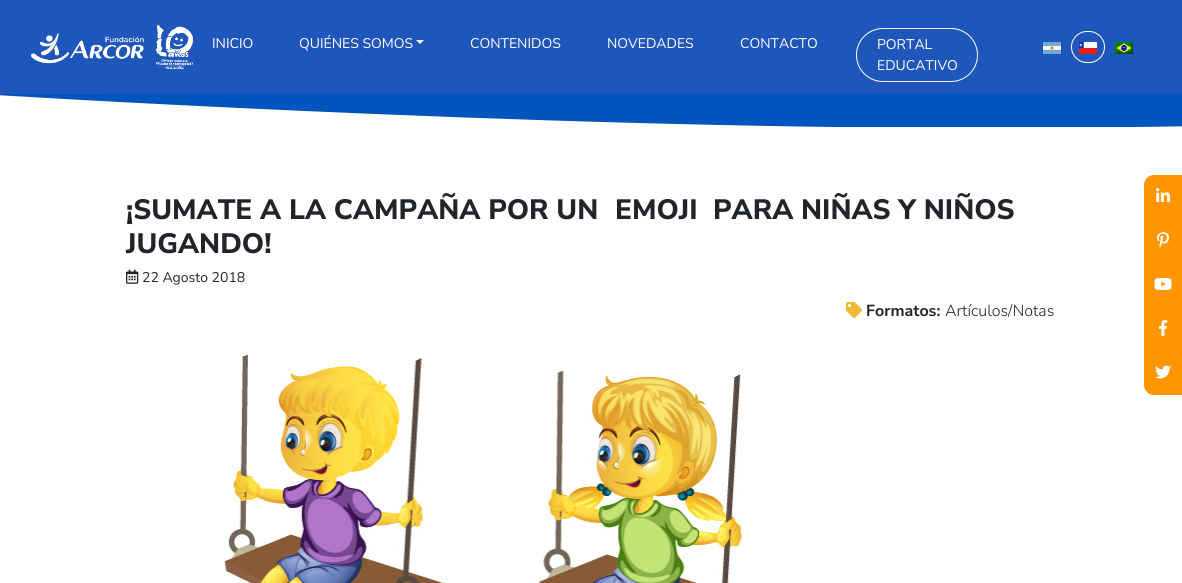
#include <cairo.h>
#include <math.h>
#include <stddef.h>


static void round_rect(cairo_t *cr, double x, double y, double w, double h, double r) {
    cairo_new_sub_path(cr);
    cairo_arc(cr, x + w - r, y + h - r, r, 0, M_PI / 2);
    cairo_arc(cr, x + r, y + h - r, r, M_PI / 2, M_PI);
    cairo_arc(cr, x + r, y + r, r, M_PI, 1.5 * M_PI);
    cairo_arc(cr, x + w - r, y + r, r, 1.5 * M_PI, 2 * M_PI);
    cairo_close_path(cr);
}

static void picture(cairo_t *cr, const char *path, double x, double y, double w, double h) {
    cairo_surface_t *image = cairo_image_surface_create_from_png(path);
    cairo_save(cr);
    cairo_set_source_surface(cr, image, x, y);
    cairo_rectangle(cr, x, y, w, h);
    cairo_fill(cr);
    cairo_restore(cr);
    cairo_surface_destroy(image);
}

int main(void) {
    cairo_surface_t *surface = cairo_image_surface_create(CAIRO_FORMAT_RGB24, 1182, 583);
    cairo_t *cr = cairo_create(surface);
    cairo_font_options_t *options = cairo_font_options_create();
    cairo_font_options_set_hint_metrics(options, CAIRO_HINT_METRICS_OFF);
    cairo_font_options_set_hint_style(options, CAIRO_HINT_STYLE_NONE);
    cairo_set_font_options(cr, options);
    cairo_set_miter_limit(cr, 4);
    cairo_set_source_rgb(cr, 1, 1, 1);
    cairo_paint(cr);
    cairo_set_source_rgb(cr, 0.118, 0.337, 0.737);
    cairo_rectangle(cr, 0, 0, 1182, 94);
    cairo_fill(cr);
    picture(cr, "img1.png", 31, 25, 162, 45);
    cairo_select_font_face(cr, "Nunito Sans", CAIRO_FONT_SLANT_NORMAL, CAIRO_FONT_WEIGHT_NORMAL);
    cairo_set_font_size(cr, 14);
    cairo_set_source_rgb(cr, 1, 1, 1);
    cairo_move_to(cr, 212, 48);
    cairo_show_text(cr, "INICIO");
    cairo_move_to(cr, 299, 48);
    cairo_show_text(cr, "QUIÉNES SOMOS");
    cairo_new_path(cr);
    cairo_move_to(cr, 416, 40);
    cairo_line_to(cr, 424, 40);
    cairo_line_to(cr, 420, 44);
    cairo_close_path(cr);
    cairo_fill(cr);
    cairo_move_to(cr, 470, 48);
    cairo_show_text(cr, "CONTENIDOS");
    cairo_move_to(cr, 607, 48);
    cairo_show_text(cr, "NOVEDADES");
    cairo_move_to(cr, 740, 48);
    cairo_show_text(cr, "CONTACTO");
    round_rect(cr, 856.5, 28.5, 121, 53, 26.5);
    cairo_set_line_width(cr, 1);
    cairo_stroke(cr);
    cairo_move_to(cr, 877, 49);
    cairo_show_text(cr, "PORTAL");
    cairo_move_to(cr, 877, 70);
    cairo_show_text(cr, "EDUCATIVO");
    picture(cr, "img2.png", 1043, 42, 18, 12);
    round_rect(cr, 1071.5, 31.5, 33, 31, 15.5);
    cairo_stroke(cr);
    picture(cr, "img3.png", 1079, 42, 18, 12);
    picture(cr, "img4.png", 1115, 42, 18, 12);
    picture(cr, "img5.png", 0, 94, 1182, 33);
    cairo_select_font_face(cr, "Nunito Sans ExtraBold", CAIRO_FONT_SLANT_NORMAL, CAIRO_FONT_WEIGHT_NORMAL);
    cairo_set_font_size(cr, 28);
    cairo_set_source_rgb(cr, 0.129, 0.145, 0.161);
    cairo_move_to(cr, 126, 219);
    cairo_show_text(cr, "¡SUMATE A LA CAMPAÑA POR UN");
    cairo_move_to(cr, 615, 219);
    cairo_show_text(cr, "EMOJI");
    cairo_move_to(cr, 713, 219);
    cairo_show_text(cr, "PARA NIÑAS Y NIÑOS");
    cairo_move_to(cr, 126, 253);
    cairo_show_text(cr, "JUGANDO!");
    picture(cr, "img6.png", 126, 269, 13, 15);
    cairo_select_font_face(cr, "Nunito Sans", CAIRO_FONT_SLANT_NORMAL, CAIRO_FONT_WEIGHT_NORMAL);
    cairo_set_font_size(cr, 14);
    cairo_move_to(cr, 142, 282);
    cairo_show_text(cr, "22 Agosto 2018");
    picture(cr, "img7.png", 846, 302, 16, 16);
    cairo_select_font_face(cr, "Nunito Sans", CAIRO_FONT_SLANT_NORMAL, CAIRO_FONT_WEIGHT_BOLD);
    cairo_set_font_size(cr, 16);
    cairo_move_to(cr, 866, 316);
    cairo_show_text(cr, "Formatos:");
    cairo_select_font_face(cr, "Nunito Sans Light", CAIRO_FONT_SLANT_NORMAL, CAIRO_FONT_WEIGHT_NORMAL);
    cairo_move_to(cr, 945, 316);
    cairo_show_text(cr, "Artículos/Notas");
    picture(cr, "img8.png", 224, 354, 519, 229);
    cairo_set_source_rgb(cr, 1, 0.584, 0.008);
    cairo_new_path(cr);
    cairo_move_to(cr, 1154, 175);
    cairo_line_to(cr, 1182, 175);
    cairo_line_to(cr, 1182, 395);
    cairo_line_to(cr, 1154, 395);
    cairo_curve_to(cr, 1148.5, 395, 1144, 390.5, 1144, 385);
    cairo_line_to(cr, 1144, 185);
    cairo_curve_to(cr, 1144, 179.5, 1148.5, 175, 1154, 175);
    cairo_close_path(cr);
    cairo_fill(cr);
    picture(cr, "img9.png", 1156, 188, 14, 14);
    picture(cr, "img10.png", 1157, 232, 12, 16);
    picture(cr, "img11.png", 1154, 278, 18, 12);
    picture(cr, "img12.png", 1159, 320, 9, 16);
    picture(cr, "img13.png", 1155, 365, 16, 14);
    cairo_surface_write_to_png(surface, "page.png");
    cairo_font_options_destroy(options);
    cairo_destroy(cr);
    cairo_surface_destroy(surface);
    return 0;
}
